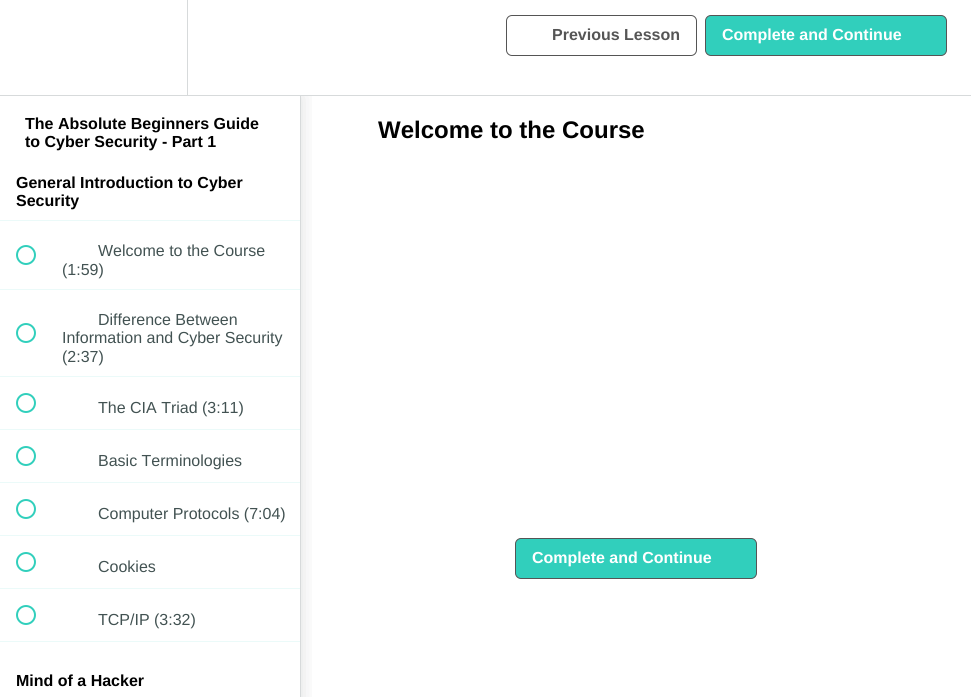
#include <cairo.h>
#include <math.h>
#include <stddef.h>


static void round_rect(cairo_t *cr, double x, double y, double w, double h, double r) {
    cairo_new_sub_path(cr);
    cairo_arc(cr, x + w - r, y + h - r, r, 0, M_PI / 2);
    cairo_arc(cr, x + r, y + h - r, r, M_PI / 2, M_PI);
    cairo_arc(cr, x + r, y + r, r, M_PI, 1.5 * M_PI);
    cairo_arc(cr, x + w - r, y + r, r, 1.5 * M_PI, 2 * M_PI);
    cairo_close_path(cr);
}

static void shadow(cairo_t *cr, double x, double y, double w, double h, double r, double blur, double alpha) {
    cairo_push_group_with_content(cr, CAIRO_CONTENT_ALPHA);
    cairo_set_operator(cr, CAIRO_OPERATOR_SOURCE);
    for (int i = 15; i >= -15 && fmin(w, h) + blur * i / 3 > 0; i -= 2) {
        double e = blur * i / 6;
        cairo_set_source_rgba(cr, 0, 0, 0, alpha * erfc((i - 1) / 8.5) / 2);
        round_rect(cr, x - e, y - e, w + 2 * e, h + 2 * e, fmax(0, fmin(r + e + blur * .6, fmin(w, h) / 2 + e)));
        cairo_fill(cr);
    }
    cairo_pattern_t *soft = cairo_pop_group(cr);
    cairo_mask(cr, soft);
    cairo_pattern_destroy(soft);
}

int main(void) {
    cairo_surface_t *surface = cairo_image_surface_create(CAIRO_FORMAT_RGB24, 971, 697);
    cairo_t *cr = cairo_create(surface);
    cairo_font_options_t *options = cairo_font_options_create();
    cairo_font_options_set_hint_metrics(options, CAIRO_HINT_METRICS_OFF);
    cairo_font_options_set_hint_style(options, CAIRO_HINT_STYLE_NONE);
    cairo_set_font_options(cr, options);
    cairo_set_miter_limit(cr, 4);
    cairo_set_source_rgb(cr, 1, 1, 1);
    cairo_paint(cr);
    cairo_save(cr);
    cairo_rectangle(cr, 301, 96, 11, 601);
    cairo_clip(cr);
    cairo_set_source_rgb(cr, 0.125, 0.153, 0.176);
    shadow(cr, 0, 96, 301, 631, 0, 10, 0.15);
    cairo_restore(cr);
    cairo_set_source_rgb(cr, 0.843, 0.855, 0.859);
    cairo_rectangle(cr, 300, 90, 1, 607);
    cairo_fill(cr);
    cairo_set_source_rgb(cr, 1, 1, 1);
    cairo_rectangle(cr, 0, 82, 310, 13);
    cairo_fill(cr);
    cairo_set_source_rgb(cr, 0.843, 0.855, 0.859);
    cairo_rectangle(cr, 0, 95, 971, 1);
    cairo_fill(cr);
    cairo_rectangle(cr, 187, 0, 1, 95);
    cairo_fill(cr);
    round_rect(cr, 506.5, 15.5, 190, 40, 5.5);
    cairo_set_source_rgb(cr, 0.333, 0.333, 0.333);
    cairo_set_line_width(cr, 1);
    cairo_stroke(cr);
    cairo_select_font_face(cr, "Liberation Sans", CAIRO_FONT_SLANT_NORMAL, CAIRO_FONT_WEIGHT_BOLD);
    cairo_set_font_size(cr, 16);
    cairo_move_to(cr, 552, 40);
    cairo_show_text(cr, "Previous Lesson");
    cairo_set_source_rgb(cr, 0.192, 0.812, 0.737);
    round_rect(cr, 705.5, 15.5, 241, 40, 5.5);
    cairo_fill_preserve(cr);
    cairo_set_source_rgb(cr, 0.333, 0.333, 0.333);
    cairo_stroke(cr);
    cairo_set_source_rgb(cr, 1, 1, 1);
    cairo_move_to(cr, 722, 40);
    cairo_show_text(cr, "Complete and Continue");
    cairo_set_source_rgb(cr, 0, 0, 0);
    cairo_move_to(cr, 25, 129);
    cairo_show_text(cr, "The Absolute Beginners Guide");
    cairo_move_to(cr, 25, 147);
    cairo_show_text(cr, "to Cyber Security - Part 1");
    cairo_set_source_rgb(cr, 0.918, 0.98, 0.973);
    cairo_rectangle(cr, 0, 220, 300, 1);
    cairo_fill(cr);
    cairo_set_source_rgb(cr, 0, 0, 0);
    cairo_move_to(cr, 16, 188);
    cairo_show_text(cr, "General Introduction to Cyber");
    cairo_move_to(cr, 16, 206);
    cairo_show_text(cr, "Security");
    cairo_set_source_rgb(cr, 0.918, 0.98, 0.973);
    cairo_rectangle(cr, 0, 289, 300, 1);
    cairo_fill(cr);
    cairo_arc(cr, 26, 255, 9, 0, 2 * M_PI);
    cairo_set_source_rgb(cr, 0.192, 0.812, 0.737);
    cairo_set_line_width(cr, 2);
    cairo_stroke(cr);
    cairo_select_font_face(cr, "Liberation Sans", CAIRO_FONT_SLANT_NORMAL, CAIRO_FONT_WEIGHT_NORMAL);
    cairo_set_source_rgb(cr, 0.259, 0.322, 0.322);
    cairo_move_to(cr, 98, 256);
    cairo_show_text(cr, "Welcome to the Course");
    cairo_move_to(cr, 62, 275);
    cairo_show_text(cr, "(1:59)");
    cairo_set_source_rgb(cr, 0.918, 0.98, 0.973);
    cairo_rectangle(cr, 0, 376, 300, 1);
    cairo_fill(cr);
    cairo_arc(cr, 26, 333, 9, 0, 2 * M_PI);
    cairo_set_source_rgb(cr, 0.192, 0.812, 0.737);
    cairo_stroke(cr);
    cairo_set_source_rgb(cr, 0.259, 0.322, 0.322);
    cairo_move_to(cr, 98, 325);
    cairo_show_text(cr, "Difference Between");
    cairo_move_to(cr, 62, 343);
    cairo_show_text(cr, "Information and Cyber Security");
    cairo_move_to(cr, 62, 362);
    cairo_show_text(cr, "(2:37)");
    cairo_set_source_rgb(cr, 0.918, 0.98, 0.973);
    cairo_rectangle(cr, 0, 429, 300, 1);
    cairo_fill(cr);
    cairo_arc(cr, 26, 403, 9, 0, 2 * M_PI);
    cairo_set_source_rgb(cr, 0.192, 0.812, 0.737);
    cairo_stroke(cr);
    cairo_set_source_rgb(cr, 0.259, 0.322, 0.322);
    cairo_move_to(cr, 98, 413);
    cairo_show_text(cr, "The CIA Triad (3:11)");
    cairo_set_source_rgb(cr, 0.918, 0.98, 0.973);
    cairo_rectangle(cr, 0, 482, 300, 1);
    cairo_fill(cr);
    cairo_arc(cr, 26, 456, 9, 0, 2 * M_PI);
    cairo_set_source_rgb(cr, 0.192, 0.812, 0.737);
    cairo_stroke(cr);
    cairo_set_source_rgb(cr, 0.259, 0.322, 0.322);
    cairo_move_to(cr, 98, 466);
    cairo_show_text(cr, "Basic Terminologies");
    cairo_set_source_rgb(cr, 0.918, 0.98, 0.973);
    cairo_rectangle(cr, 0, 535, 300, 1);
    cairo_fill(cr);
    cairo_arc(cr, 26, 509, 9, 0, 2 * M_PI);
    cairo_set_source_rgb(cr, 0.192, 0.812, 0.737);
    cairo_stroke(cr);
    cairo_set_source_rgb(cr, 0.259, 0.322, 0.322);
    cairo_move_to(cr, 98, 519);
    cairo_show_text(cr, "Computer Protocols (7:04)");
    cairo_set_source_rgb(cr, 0.918, 0.98, 0.973);
    cairo_rectangle(cr, 0, 588, 300, 1);
    cairo_fill(cr);
    cairo_arc(cr, 26, 562, 9, 0, 2 * M_PI);
    cairo_set_source_rgb(cr, 0.192, 0.812, 0.737);
    cairo_stroke(cr);
    cairo_set_source_rgb(cr, 0.259, 0.322, 0.322);
    cairo_move_to(cr, 98, 572);
    cairo_show_text(cr, "Cookies");
    cairo_set_source_rgb(cr, 0.918, 0.98, 0.973);
    cairo_rectangle(cr, 0, 641, 300, 1);
    cairo_fill(cr);
    cairo_arc(cr, 26, 615, 9, 0, 2 * M_PI);
    cairo_set_source_rgb(cr, 0.192, 0.812, 0.737);
    cairo_stroke(cr);
    cairo_set_source_rgb(cr, 0.259, 0.322, 0.322);
    cairo_move_to(cr, 98, 625);
    cairo_show_text(cr, "TCP/IP (3:32)");
    cairo_select_font_face(cr, "Liberation Sans", CAIRO_FONT_SLANT_NORMAL, CAIRO_FONT_WEIGHT_BOLD);
    cairo_set_source_rgb(cr, 0, 0, 0);
    cairo_move_to(cr, 16, 686);
    cairo_show_text(cr, "Mind of a Hacker");
    cairo_set_font_size(cr, 24);
    cairo_move_to(cr, 378, 138);
    cairo_show_text(cr, "Welcome to the Course");
    cairo_set_source_rgb(cr, 0.192, 0.812, 0.737);
    round_rect(cr, 515.5, 538.5, 241, 40, 5.5);
    cairo_fill_preserve(cr);
    cairo_set_source_rgb(cr, 0.333, 0.333, 0.333);
    cairo_set_line_width(cr, 1);
    cairo_stroke(cr);
    cairo_set_font_size(cr, 16);
    cairo_set_source_rgb(cr, 1, 1, 1);
    cairo_move_to(cr, 532, 563);
    cairo_show_text(cr, "Complete and Continue");
    cairo_surface_write_to_png(surface, "page.png");
    cairo_font_options_destroy(options);
    cairo_destroy(cr);
    cairo_surface_destroy(surface);
    return 0;
}
